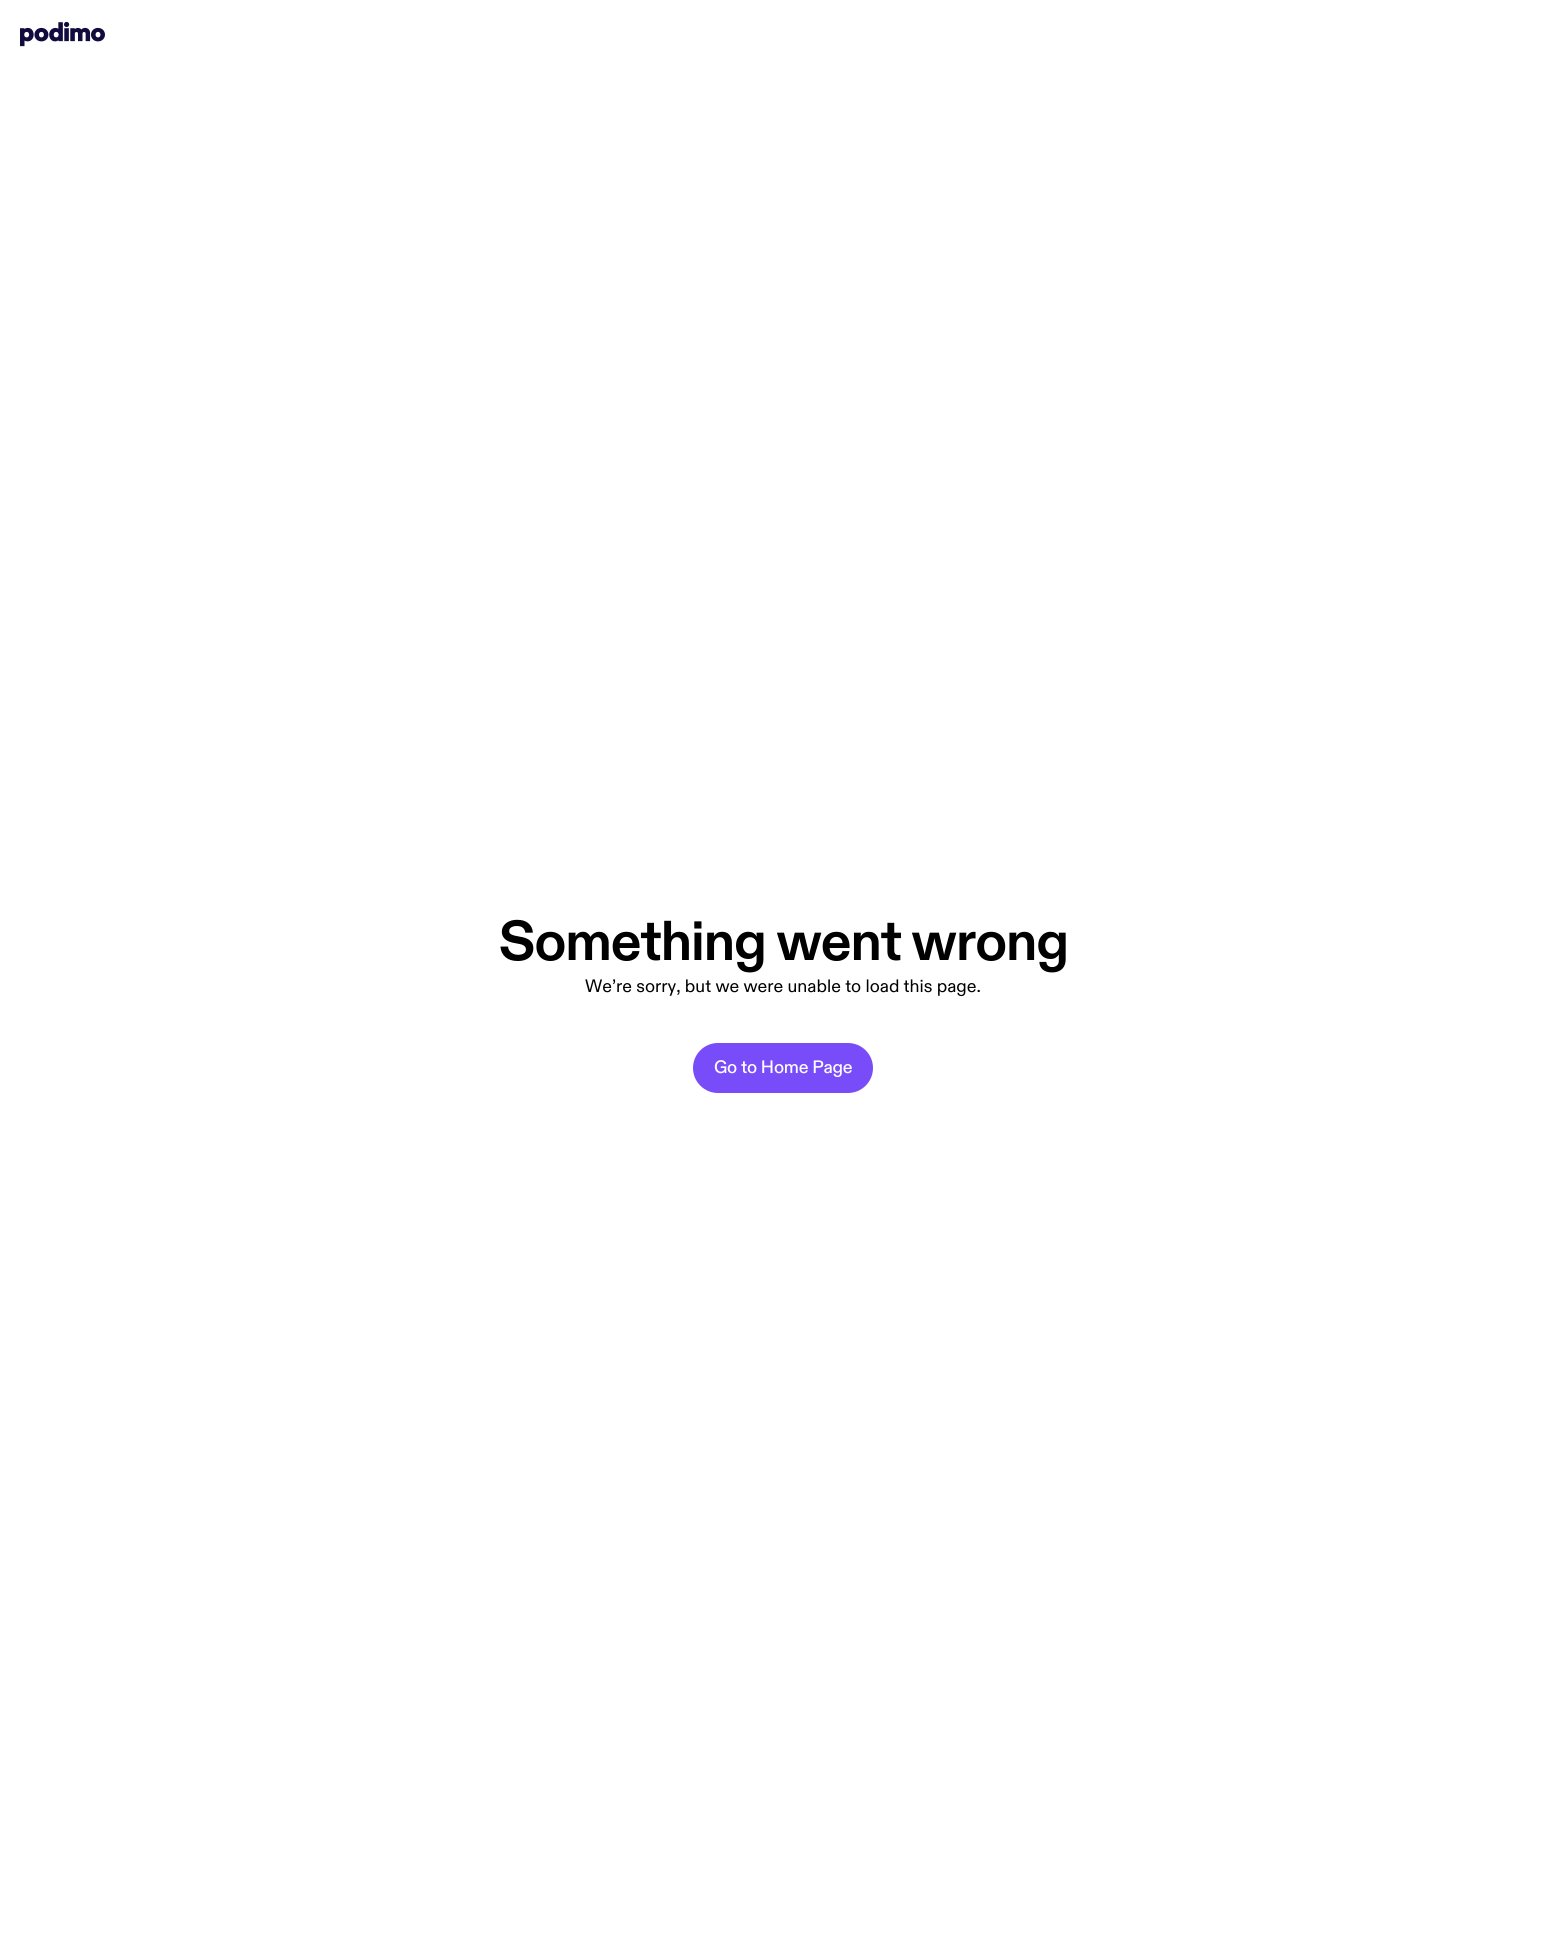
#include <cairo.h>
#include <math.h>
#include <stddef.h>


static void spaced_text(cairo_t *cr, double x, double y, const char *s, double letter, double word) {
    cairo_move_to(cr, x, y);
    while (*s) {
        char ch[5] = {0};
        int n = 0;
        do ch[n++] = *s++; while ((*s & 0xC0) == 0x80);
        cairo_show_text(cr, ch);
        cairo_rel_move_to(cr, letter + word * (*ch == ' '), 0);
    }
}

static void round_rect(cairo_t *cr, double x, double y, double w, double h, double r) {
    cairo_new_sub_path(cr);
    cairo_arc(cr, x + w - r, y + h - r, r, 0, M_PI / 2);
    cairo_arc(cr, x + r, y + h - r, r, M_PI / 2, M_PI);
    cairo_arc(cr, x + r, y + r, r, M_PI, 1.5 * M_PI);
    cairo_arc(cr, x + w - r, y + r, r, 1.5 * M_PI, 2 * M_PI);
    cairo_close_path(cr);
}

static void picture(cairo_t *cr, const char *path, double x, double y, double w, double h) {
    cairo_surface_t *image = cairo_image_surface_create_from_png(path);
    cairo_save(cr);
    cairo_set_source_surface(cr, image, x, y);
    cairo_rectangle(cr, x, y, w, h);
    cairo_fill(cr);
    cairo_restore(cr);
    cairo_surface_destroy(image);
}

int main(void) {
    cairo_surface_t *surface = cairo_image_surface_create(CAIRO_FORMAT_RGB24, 1566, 1936);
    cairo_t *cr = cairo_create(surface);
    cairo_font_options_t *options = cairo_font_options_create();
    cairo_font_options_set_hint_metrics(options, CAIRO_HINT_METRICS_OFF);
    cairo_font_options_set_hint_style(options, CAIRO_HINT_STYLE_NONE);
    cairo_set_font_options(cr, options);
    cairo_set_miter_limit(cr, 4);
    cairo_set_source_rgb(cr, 1, 1, 1);
    cairo_paint(cr);
    picture(cr, "img1.png", 20, 21, 85, 26);
    cairo_select_font_face(cr, "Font", CAIRO_FONT_SLANT_NORMAL, CAIRO_FONT_WEIGHT_BOLD);
    cairo_set_font_size(cr, 56);
    cairo_set_source_rgb(cr, 0, 0, 0);
    spaced_text(cr, 499, 960, "Something went wrong", -1.1, 0);
    cairo_select_font_face(cr, "Font", CAIRO_FONT_SLANT_NORMAL, CAIRO_FONT_WEIGHT_NORMAL);
    cairo_set_font_size(cr, 18);
    cairo_move_to(cr, 585, 992);
    cairo_show_text(cr, "We’re sorry, but we were unable to load this page.");
    cairo_set_source_rgb(cr, 0.475, 0.298, 0.973);
    round_rect(cr, 693, 1043, 180, 50, 25);
    cairo_fill(cr);
    cairo_select_font_face(cr, "Font Medium", CAIRO_FONT_SLANT_NORMAL, CAIRO_FONT_WEIGHT_NORMAL);
    cairo_set_source_rgb(cr, 1, 1, 1);
    spaced_text(cr, 714, 1073, "Go to Home Page", -0.2, 0);
    cairo_surface_write_to_png(surface, "page.png");
    cairo_font_options_destroy(options);
    cairo_destroy(cr);
    cairo_surface_destroy(surface);
    return 0;
}
